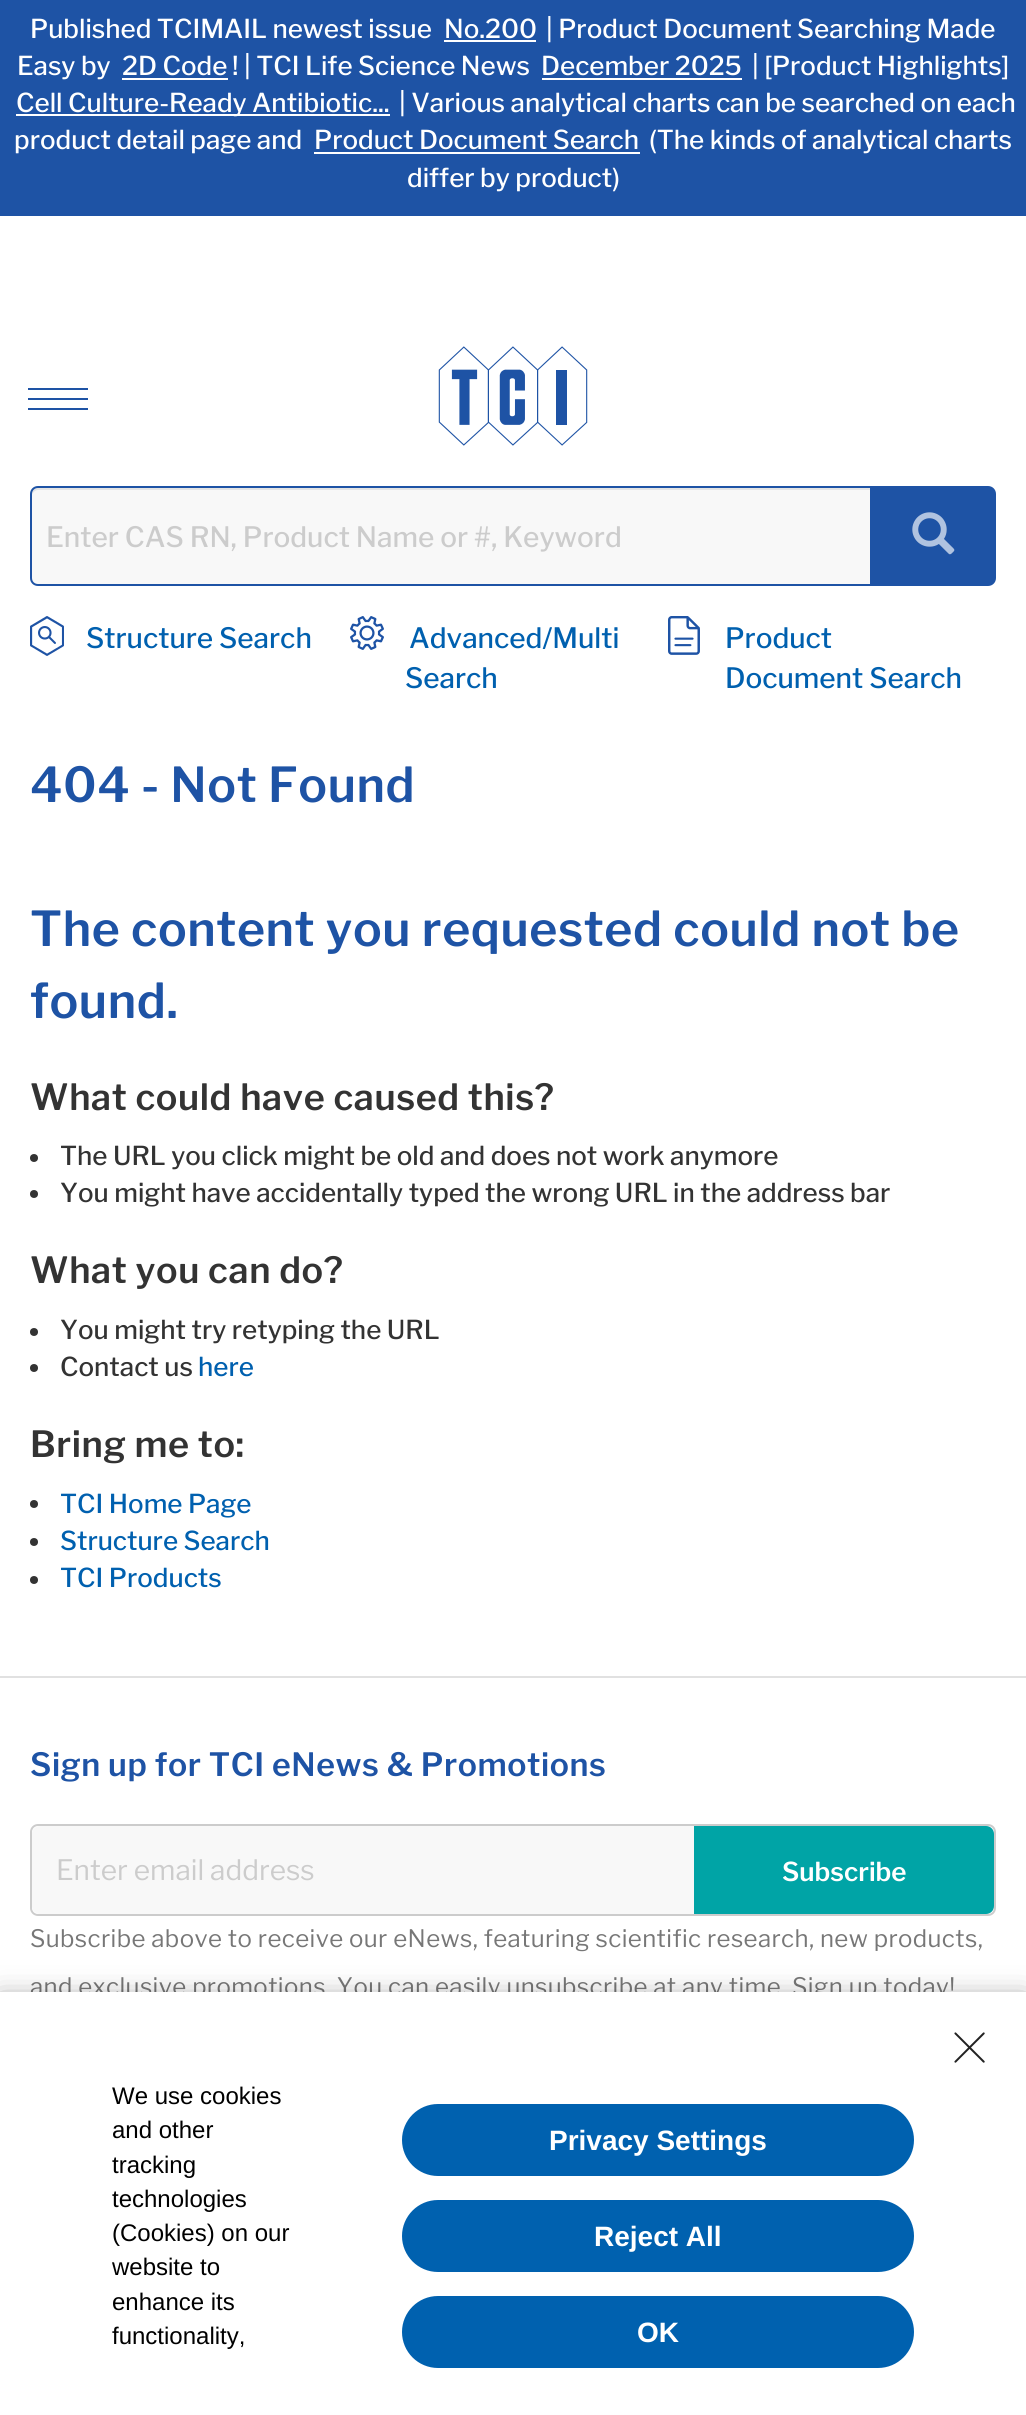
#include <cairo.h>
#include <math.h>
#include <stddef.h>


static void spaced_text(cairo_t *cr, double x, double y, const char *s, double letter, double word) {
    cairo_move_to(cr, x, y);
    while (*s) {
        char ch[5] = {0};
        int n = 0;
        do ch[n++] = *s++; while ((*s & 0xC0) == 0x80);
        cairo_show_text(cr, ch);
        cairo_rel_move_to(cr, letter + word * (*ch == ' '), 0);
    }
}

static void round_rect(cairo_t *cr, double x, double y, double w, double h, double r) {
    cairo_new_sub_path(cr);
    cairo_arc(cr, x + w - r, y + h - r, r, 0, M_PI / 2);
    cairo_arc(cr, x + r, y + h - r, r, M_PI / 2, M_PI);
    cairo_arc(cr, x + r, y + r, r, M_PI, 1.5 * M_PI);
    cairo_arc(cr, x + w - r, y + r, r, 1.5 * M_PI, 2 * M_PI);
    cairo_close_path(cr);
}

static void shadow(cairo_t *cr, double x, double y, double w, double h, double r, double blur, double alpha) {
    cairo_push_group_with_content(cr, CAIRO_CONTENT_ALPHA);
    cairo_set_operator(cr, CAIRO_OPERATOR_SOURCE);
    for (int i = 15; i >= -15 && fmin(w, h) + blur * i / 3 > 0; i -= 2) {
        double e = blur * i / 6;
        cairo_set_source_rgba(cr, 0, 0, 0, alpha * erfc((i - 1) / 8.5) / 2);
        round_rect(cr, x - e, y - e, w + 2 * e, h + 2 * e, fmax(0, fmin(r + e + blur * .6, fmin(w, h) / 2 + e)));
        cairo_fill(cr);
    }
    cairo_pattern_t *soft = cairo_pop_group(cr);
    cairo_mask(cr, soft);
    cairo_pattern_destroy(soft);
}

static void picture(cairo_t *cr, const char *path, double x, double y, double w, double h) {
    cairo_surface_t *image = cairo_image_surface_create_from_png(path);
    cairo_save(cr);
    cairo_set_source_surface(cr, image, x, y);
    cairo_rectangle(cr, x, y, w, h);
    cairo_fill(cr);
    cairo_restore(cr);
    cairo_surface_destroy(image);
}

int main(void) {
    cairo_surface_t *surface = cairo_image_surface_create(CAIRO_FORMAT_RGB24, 1026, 2415);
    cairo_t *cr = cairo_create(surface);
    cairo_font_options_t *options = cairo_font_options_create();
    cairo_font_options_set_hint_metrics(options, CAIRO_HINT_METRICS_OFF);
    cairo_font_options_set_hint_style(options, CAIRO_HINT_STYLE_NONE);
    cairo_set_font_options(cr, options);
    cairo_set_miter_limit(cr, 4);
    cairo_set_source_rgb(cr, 1, 1, 1);
    cairo_paint(cr);
    cairo_set_source_rgb(cr, 0.118, 0.325, 0.647);
    cairo_rectangle(cr, 0, 0, 1026, 216);
    cairo_fill(cr);
    cairo_select_font_face(cr, "Libre Franklin Medium", CAIRO_FONT_SLANT_NORMAL, CAIRO_FONT_WEIGHT_NORMAL);
    cairo_set_font_size(cr, 26);
    cairo_set_source_rgb(cr, 1, 1, 1);
    cairo_move_to(cr, 30, 38);
    cairo_show_text(cr, "Published TCIMAIL newest issue");
    cairo_move_to(cr, 444, 38);
    cairo_show_text(cr, "No.200");
    cairo_rectangle(cr, 444, 40, 92, 2);
    cairo_fill(cr);
    cairo_move_to(cr, 546, 38);
    cairo_show_text(cr, "| Product Document Searching Made");
    cairo_move_to(cr, 17, 75);
    cairo_show_text(cr, "Easy by");
    cairo_move_to(cr, 122, 75);
    cairo_show_text(cr, "2D Code");
    cairo_rectangle(cr, 122, 78, 106, 2);
    cairo_fill(cr);
    cairo_move_to(cr, 232, 75);
    cairo_show_text(cr, "! | TCI Life Science News");
    cairo_move_to(cr, 541, 75);
    cairo_show_text(cr, "December 2025");
    cairo_rectangle(cr, 542, 78, 200, 2);
    cairo_fill(cr);
    cairo_move_to(cr, 752, 75);
    cairo_show_text(cr, "| [Product Highlights]");
    cairo_rectangle(cr, 16, 114, 374, 2);
    cairo_fill(cr);
    cairo_move_to(cr, 16, 112);
    cairo_show_text(cr, "Cell Culture-Ready Antibiotic...");
    cairo_move_to(cr, 399, 112);
    cairo_show_text(cr, "| Various analytical charts can be searched on each");
    cairo_move_to(cr, 14, 149);
    cairo_show_text(cr, "product detail page and");
    cairo_move_to(cr, 314, 149);
    cairo_show_text(cr, "Product Document Search");
    cairo_rectangle(cr, 314, 152, 326, 2);
    cairo_fill(cr);
    cairo_move_to(cr, 649, 149);
    cairo_show_text(cr, "(The kinds of analytical charts");
    cairo_move_to(cr, 407, 187);
    cairo_show_text(cr, "differ by product)");
    cairo_set_source_rgb(cr, 0.118, 0.325, 0.647);
    cairo_rectangle(cr, 28, 388, 60, 2);
    cairo_fill(cr);
    cairo_rectangle(cr, 28, 398, 60, 2);
    cairo_fill(cr);
    cairo_rectangle(cr, 28, 408, 60, 2);
    cairo_fill(cr);
    picture(cr, "img1.png", 438, 346, 150, 100);
    cairo_set_source_rgb(cr, 0.969, 0.969, 0.969);
    cairo_new_path(cr);
    cairo_move_to(cr, 38, 486);
    cairo_line_to(cr, 872, 486);
    cairo_line_to(cr, 872, 586);
    cairo_line_to(cr, 38, 586);
    cairo_curve_to(cr, 33.5, 586, 30, 582.5, 30, 578);
    cairo_line_to(cr, 30, 494);
    cairo_curve_to(cr, 30, 489.5, 33.5, 486, 38, 486);
    cairo_close_path(cr);
    cairo_fill(cr);
    cairo_set_source_rgb(cr, 0.894, 0.894, 0.894);
    cairo_new_path(cr);
    cairo_move_to(cr, 38, 490);
    cairo_line_to(cr, 870, 490);
    cairo_line_to(cr, 870, 488);
    cairo_line_to(cr, 38, 488);
    cairo_curve_to(cr, 33, 488, 32, 492, 32, 496);
    cairo_curve_to(cr, 32, 493, 35, 490, 38, 490);
    cairo_close_path(cr);
    cairo_fill(cr);
    cairo_new_path(cr);
    cairo_move_to(cr, 38, 487);
    cairo_line_to(cr, 871, 487);
    cairo_line_to(cr, 871, 585);
    cairo_line_to(cr, 38, 585);
    cairo_curve_to(cr, 34, 585, 31, 582, 31, 578);
    cairo_line_to(cr, 31, 494);
    cairo_curve_to(cr, 31, 490, 34, 487, 38, 487);
    cairo_close_path(cr);
    cairo_set_source_rgb(cr, 0.118, 0.325, 0.647);
    cairo_stroke(cr);
    cairo_set_font_size(cr, 28);
    cairo_set_source_rgb(cr, 0.8, 0.8, 0.8);
    cairo_move_to(cr, 46, 547);
    cairo_show_text(cr, "Enter CAS RN, Product Name or #, Keyword");
    cairo_set_source_rgb(cr, 0.118, 0.325, 0.647);
    cairo_new_path(cr);
    cairo_move_to(cr, 872, 486);
    cairo_line_to(cr, 988, 486);
    cairo_curve_to(cr, 992.5, 486, 996, 489.5, 996, 494);
    cairo_line_to(cr, 996, 578);
    cairo_curve_to(cr, 996, 582.5, 992.5, 586, 988, 586);
    cairo_line_to(cr, 872, 586);
    cairo_close_path(cr);
    cairo_fill(cr);
    picture(cr, "img2.png", 912, 512, 43, 43);
    picture(cr, "img3.png", 30, 616, 34, 40);
    cairo_set_source_rgb(cr, 0, 0.376, 0.686);
    cairo_move_to(cr, 86, 648);
    cairo_show_text(cr, "Structure Search");
    picture(cr, "img4.png", 350, 616, 34, 34);
    cairo_move_to(cr, 409, 648);
    cairo_show_text(cr, "Advanced/Multi");
    cairo_move_to(cr, 405, 688);
    cairo_show_text(cr, "Search");
    picture(cr, "img5.png", 668, 616, 32, 39);
    cairo_move_to(cr, 725, 648);
    cairo_show_text(cr, "Product");
    cairo_move_to(cr, 725, 688);
    cairo_show_text(cr, "Document Search");
    cairo_select_font_face(cr, "Libre Franklin SemiBold", CAIRO_FONT_SLANT_NORMAL, CAIRO_FONT_WEIGHT_NORMAL);
    cairo_set_font_size(cr, 48);
    cairo_set_source_rgb(cr, 0.118, 0.325, 0.647);
    spaced_text(cr, 30, 802, "404 - Not Found", 0.6, 0);
    spaced_text(cr, 30, 946, "The content you requested could not be", 0.6, 0);
    spaced_text(cr, 30, 1018, "found.", 0.6, 0);
    cairo_set_font_size(cr, 36);
    cairo_set_source_rgb(cr, 0.2, 0.2, 0.2);
    spaced_text(cr, 30, 1110, "What could have caused this?", 0.6, 0);
    cairo_new_path(cr);
    cairo_arc(cr, 34, 1158, 4, 0, 2 * M_PI);
    cairo_fill(cr);
    cairo_select_font_face(cr, "Libre Franklin Medium", CAIRO_FONT_SLANT_NORMAL, CAIRO_FONT_WEIGHT_NORMAL);
    cairo_set_font_size(cr, 26);
    cairo_move_to(cr, 60, 1165);
    cairo_show_text(cr, "The URL you click might be old and does not work anymore");
    cairo_new_path(cr);
    cairo_arc(cr, 34, 1194, 4, 0, 2 * M_PI);
    cairo_fill(cr);
    cairo_move_to(cr, 60, 1202);
    cairo_show_text(cr, "You might have accidentally typed the wrong URL in the address bar");
    cairo_select_font_face(cr, "Libre Franklin SemiBold", CAIRO_FONT_SLANT_NORMAL, CAIRO_FONT_WEIGHT_NORMAL);
    cairo_set_font_size(cr, 36);
    spaced_text(cr, 30, 1283, "What you can do?", 0.6, 0);
    cairo_new_path(cr);
    cairo_arc(cr, 34, 1332, 4, 0, 2 * M_PI);
    cairo_fill(cr);
    cairo_select_font_face(cr, "Libre Franklin Medium", CAIRO_FONT_SLANT_NORMAL, CAIRO_FONT_WEIGHT_NORMAL);
    cairo_set_font_size(cr, 26);
    cairo_move_to(cr, 60, 1339);
    cairo_show_text(cr, "You might try retyping the URL");
    cairo_new_path(cr);
    cairo_arc(cr, 34, 1368, 4, 0, 2 * M_PI);
    cairo_fill(cr);
    cairo_move_to(cr, 60, 1376);
    cairo_show_text(cr, "Contact us");
    cairo_set_source_rgb(cr, 0, 0.376, 0.686);
    cairo_move_to(cr, 198, 1376);
    cairo_show_text(cr, "here");
    cairo_select_font_face(cr, "Libre Franklin SemiBold", CAIRO_FONT_SLANT_NORMAL, CAIRO_FONT_WEIGHT_NORMAL);
    cairo_set_font_size(cr, 36);
    cairo_set_source_rgb(cr, 0.2, 0.2, 0.2);
    spaced_text(cr, 30, 1457, "Bring me to:", 0.6, 0);
    cairo_new_path(cr);
    cairo_arc(cr, 34, 1504, 4, 0, 2 * M_PI);
    cairo_fill(cr);
    cairo_select_font_face(cr, "Libre Franklin Medium", CAIRO_FONT_SLANT_NORMAL, CAIRO_FONT_WEIGHT_NORMAL);
    cairo_set_font_size(cr, 26);
    cairo_set_source_rgb(cr, 0, 0.376, 0.686);
    cairo_move_to(cr, 60, 1513);
    cairo_show_text(cr, "TCI Home Page");
    cairo_set_source_rgb(cr, 0.2, 0.2, 0.2);
    cairo_new_path(cr);
    cairo_arc(cr, 34, 1542, 4, 0, 2 * M_PI);
    cairo_fill(cr);
    cairo_set_source_rgb(cr, 0, 0.376, 0.686);
    cairo_move_to(cr, 60, 1550);
    cairo_show_text(cr, "Structure Search");
    cairo_set_source_rgb(cr, 0.2, 0.2, 0.2);
    cairo_new_path(cr);
    cairo_arc(cr, 34, 1580, 4, 0, 2 * M_PI);
    cairo_fill(cr);
    cairo_set_source_rgb(cr, 0, 0.376, 0.686);
    cairo_move_to(cr, 60, 1587);
    cairo_show_text(cr, "TCI Products");
    cairo_set_source_rgb(cr, 0.882, 0.882, 0.882);
    cairo_rectangle(cr, 0, 1676, 1026, 2);
    cairo_fill(cr);
    cairo_select_font_face(cr, "Libre Franklin SemiBold", CAIRO_FONT_SLANT_NORMAL, CAIRO_FONT_WEIGHT_NORMAL);
    cairo_set_font_size(cr, 32);
    cairo_set_source_rgb(cr, 0.118, 0.325, 0.647);
    spaced_text(cr, 30, 1776, "Sign up for TCI eNews & Promotions", 0.6, 0);
    round_rect(cr, 31, 1825, 964, 90, 7);
    cairo_set_source_rgb(cr, 0.8, 0.8, 0.8);
    cairo_stroke(cr);
    cairo_set_source_rgb(cr, 0.969, 0.969, 0.969);
    cairo_new_path(cr);
    cairo_move_to(cr, 40, 1826);
    cairo_line_to(cr, 694, 1826);
    cairo_line_to(cr, 694, 1914);
    cairo_line_to(cr, 40, 1914);
    cairo_curve_to(cr, 35.5, 1914, 32, 1910.5, 32, 1906);
    cairo_line_to(cr, 32, 1834);
    cairo_curve_to(cr, 32, 1829.5, 35.5, 1826, 40, 1826);
    cairo_close_path(cr);
    cairo_fill(cr);
    cairo_select_font_face(cr, "Libre Franklin", CAIRO_FONT_SLANT_NORMAL, CAIRO_FONT_WEIGHT_NORMAL);
    cairo_set_font_size(cr, 28);
    cairo_set_source_rgb(cr, 0.8, 0.8, 0.8);
    cairo_move_to(cr, 56, 1880);
    cairo_show_text(cr, "Enter email address");
    cairo_set_source_rgb(cr, 0, 0.643, 0.651);
    cairo_new_path(cr);
    cairo_move_to(cr, 694, 1826);
    cairo_line_to(cr, 986, 1826);
    cairo_curve_to(cr, 990.5, 1826, 994, 1829.5, 994, 1834);
    cairo_line_to(cr, 994, 1906);
    cairo_curve_to(cr, 994, 1910.5, 990.5, 1914, 986, 1914);
    cairo_line_to(cr, 694, 1914);
    cairo_close_path(cr);
    cairo_fill(cr);
    cairo_select_font_face(cr, "Libre Franklin SemiBold", CAIRO_FONT_SLANT_NORMAL, CAIRO_FONT_WEIGHT_NORMAL);
    cairo_set_font_size(cr, 26);
    cairo_set_source_rgb(cr, 1, 1, 1);
    cairo_move_to(cr, 782, 1881);
    cairo_show_text(cr, "Subscribe");
    cairo_select_font_face(cr, "Libre Franklin", CAIRO_FONT_SLANT_NORMAL, CAIRO_FONT_WEIGHT_NORMAL);
    cairo_set_font_size(cr, 24);
    cairo_set_source_rgb(cr, 0.467, 0.467, 0.467);
    spaced_text(cr, 30, 1947, "Subscribe above to receive our eNews, featuring scientific research, new products,", 0.4, 0);
    spaced_text(cr, 30, 1995, "and exclusive promotions. You can easily unsubscribe at any time. Sign up today!", 0.4, 0);
    cairo_set_source_rgb(cr, 0, 0, 0);
    shadow(cr, 0, 2002, 1026, 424, 0, 15, 0.5);
    cairo_set_source_rgb(cr, 1, 1, 1);
    cairo_rectangle(cr, 0, 1992, 1026, 423);
    cairo_fill(cr);
    picture(cr, "img6.png", 954, 2032, 31, 31);
    cairo_select_font_face(cr, "Liberation Sans", CAIRO_FONT_SLANT_NORMAL, CAIRO_FONT_WEIGHT_NORMAL);
    cairo_set_source_rgb(cr, 0, 0, 0);
    cairo_move_to(cr, 112, 2104);
    cairo_show_text(cr, "We use cookies");
    cairo_move_to(cr, 112, 2138);
    cairo_show_text(cr, "and other");
    cairo_move_to(cr, 112, 2173);
    cairo_show_text(cr, "tracking");
    cairo_move_to(cr, 112, 2207);
    cairo_show_text(cr, "technologies");
    cairo_move_to(cr, 112, 2241);
    cairo_show_text(cr, "(Cookies) on our");
    cairo_move_to(cr, 112, 2275);
    cairo_show_text(cr, "website to");
    cairo_move_to(cr, 112, 2310);
    cairo_show_text(cr, "enhance its");
    cairo_move_to(cr, 112, 2344);
    cairo_show_text(cr, "functionality,");
    cairo_set_source_rgb(cr, 0, 0.38, 0.686);
    round_rect(cr, 403, 2105, 510, 70, 35);
    cairo_fill_preserve(cr);
    cairo_stroke(cr);
    cairo_select_font_face(cr, "Liberation Sans", CAIRO_FONT_SLANT_NORMAL, CAIRO_FONT_WEIGHT_BOLD);
    cairo_set_font_size(cr, 28);
    cairo_set_source_rgb(cr, 1, 1, 1);
    cairo_move_to(cr, 549, 2150);
    cairo_show_text(cr, "Privacy Settings");
    cairo_set_source_rgb(cr, 0, 0.38, 0.686);
    round_rect(cr, 403, 2201, 510, 70, 35);
    cairo_fill_preserve(cr);
    cairo_stroke(cr);
    cairo_set_source_rgb(cr, 1, 1, 1);
    cairo_move_to(cr, 594, 2246);
    cairo_show_text(cr, "Reject All");
    cairo_set_source_rgb(cr, 0, 0.38, 0.686);
    round_rect(cr, 403, 2297, 510, 70, 35);
    cairo_fill_preserve(cr);
    cairo_stroke(cr);
    cairo_set_source_rgb(cr, 1, 1, 1);
    cairo_move_to(cr, 637, 2342);
    cairo_show_text(cr, "OK");
    cairo_surface_write_to_png(surface, "page.png");
    cairo_font_options_destroy(options);
    cairo_destroy(cr);
    cairo_surface_destroy(surface);
    return 0;
}
